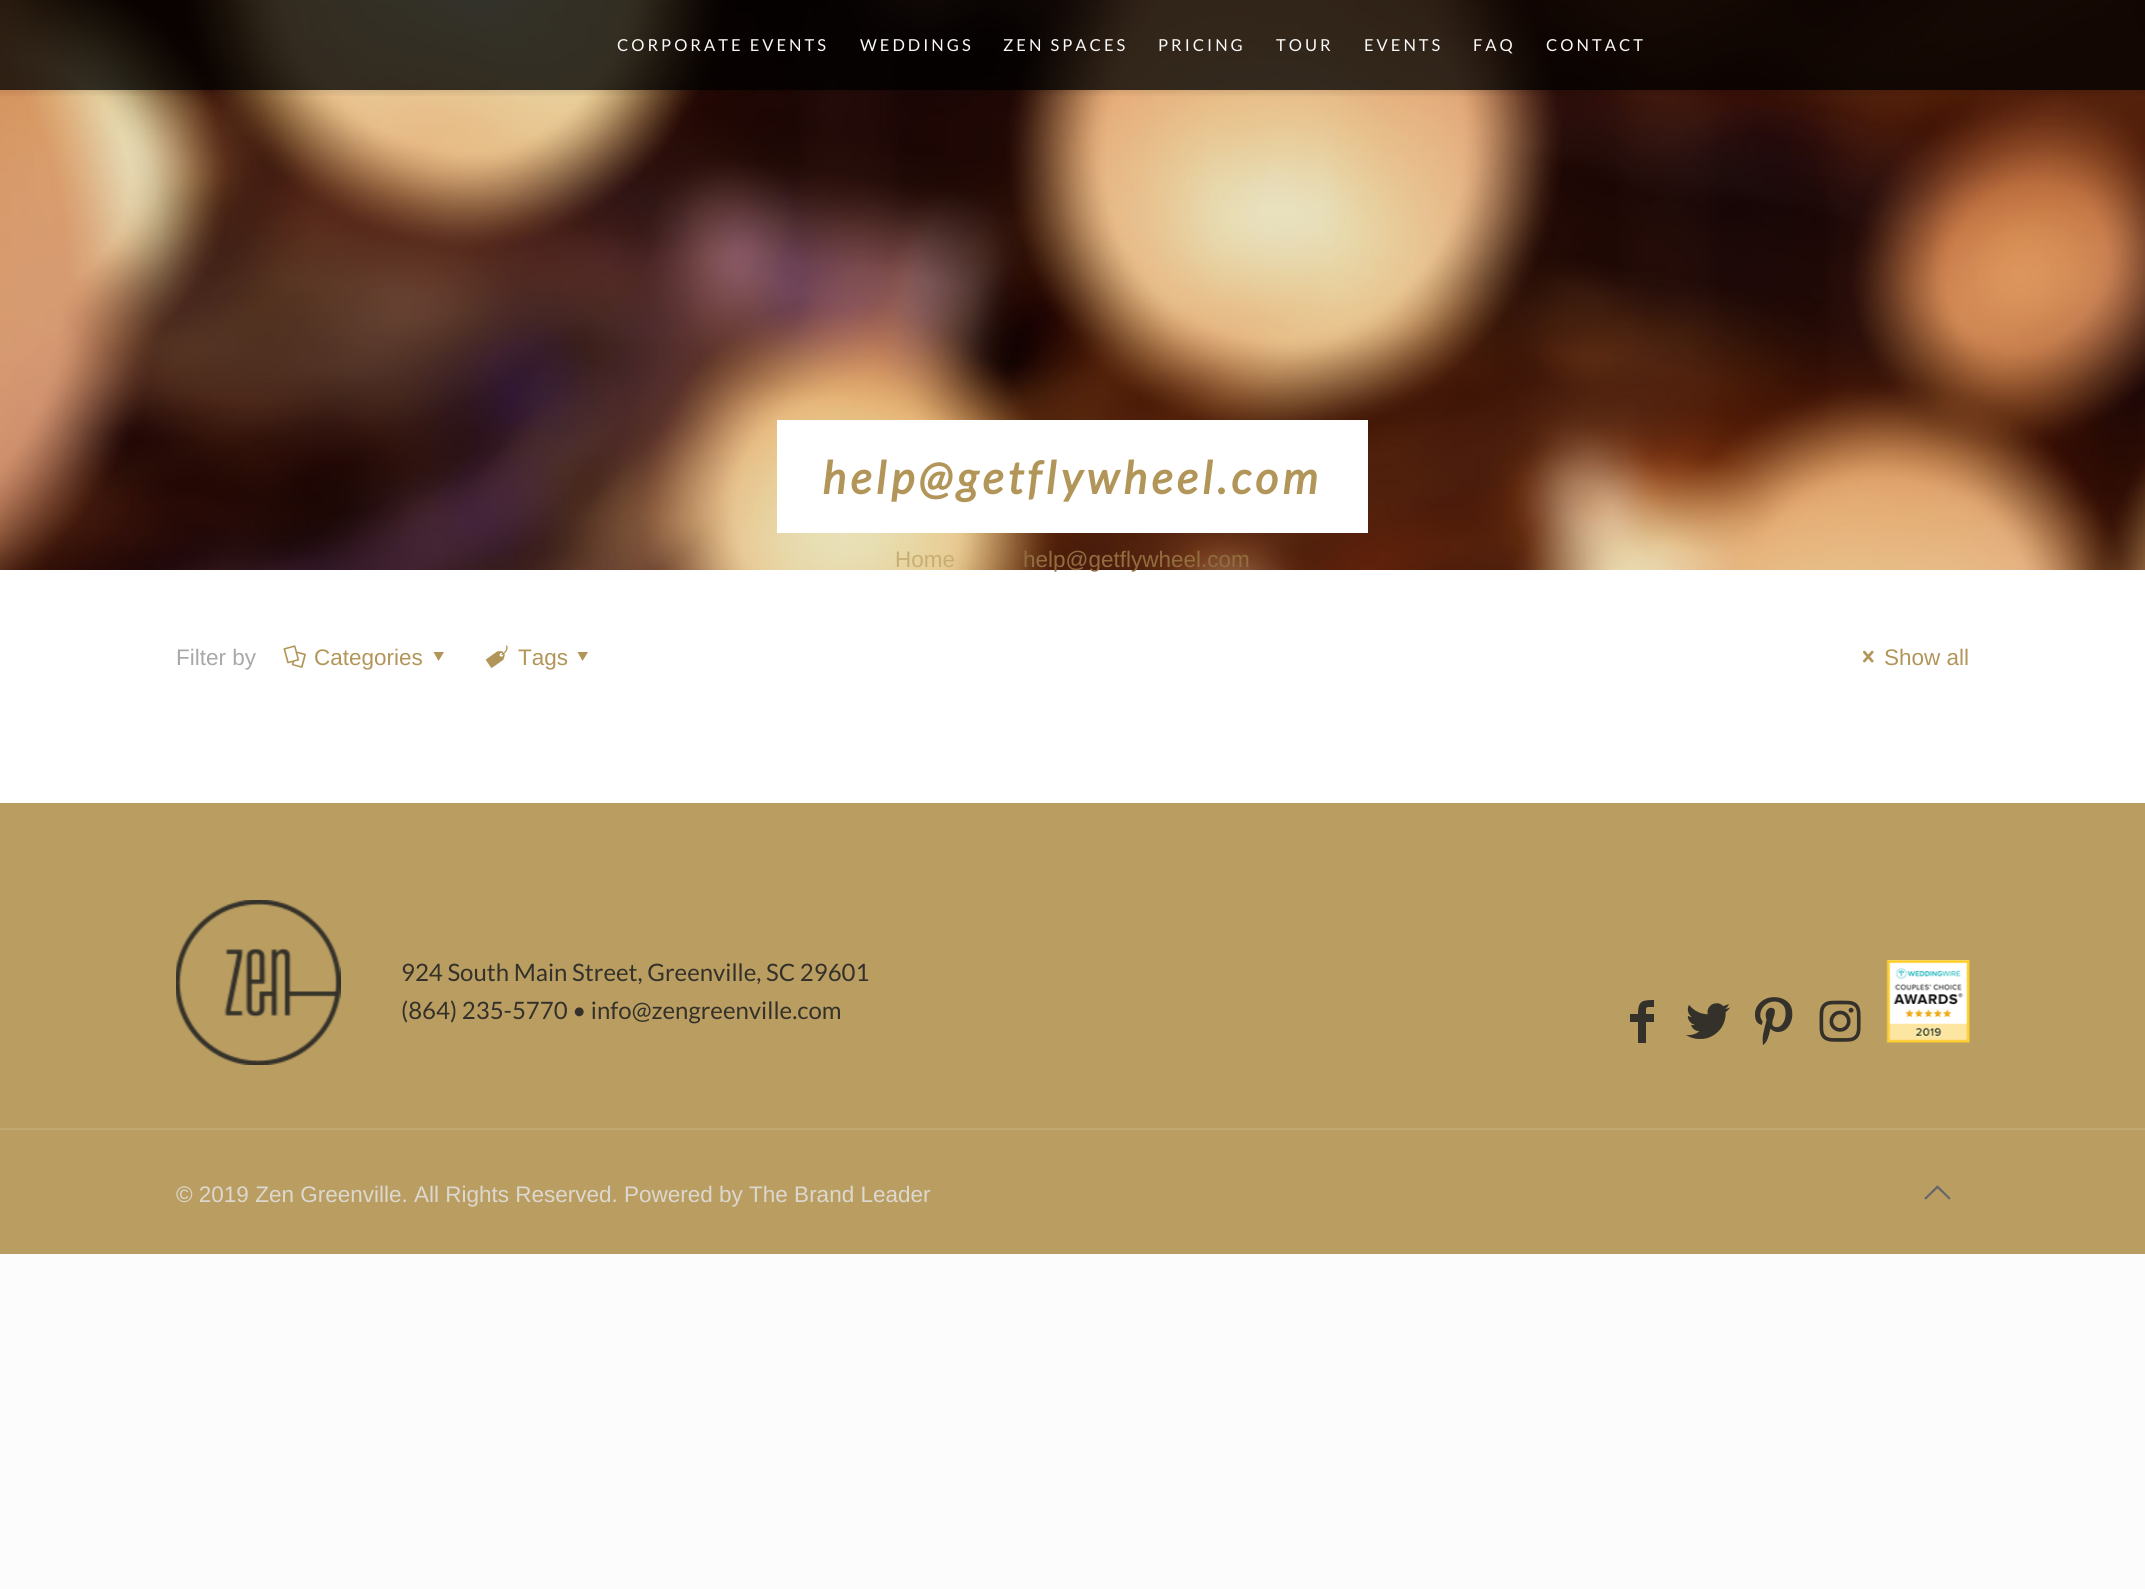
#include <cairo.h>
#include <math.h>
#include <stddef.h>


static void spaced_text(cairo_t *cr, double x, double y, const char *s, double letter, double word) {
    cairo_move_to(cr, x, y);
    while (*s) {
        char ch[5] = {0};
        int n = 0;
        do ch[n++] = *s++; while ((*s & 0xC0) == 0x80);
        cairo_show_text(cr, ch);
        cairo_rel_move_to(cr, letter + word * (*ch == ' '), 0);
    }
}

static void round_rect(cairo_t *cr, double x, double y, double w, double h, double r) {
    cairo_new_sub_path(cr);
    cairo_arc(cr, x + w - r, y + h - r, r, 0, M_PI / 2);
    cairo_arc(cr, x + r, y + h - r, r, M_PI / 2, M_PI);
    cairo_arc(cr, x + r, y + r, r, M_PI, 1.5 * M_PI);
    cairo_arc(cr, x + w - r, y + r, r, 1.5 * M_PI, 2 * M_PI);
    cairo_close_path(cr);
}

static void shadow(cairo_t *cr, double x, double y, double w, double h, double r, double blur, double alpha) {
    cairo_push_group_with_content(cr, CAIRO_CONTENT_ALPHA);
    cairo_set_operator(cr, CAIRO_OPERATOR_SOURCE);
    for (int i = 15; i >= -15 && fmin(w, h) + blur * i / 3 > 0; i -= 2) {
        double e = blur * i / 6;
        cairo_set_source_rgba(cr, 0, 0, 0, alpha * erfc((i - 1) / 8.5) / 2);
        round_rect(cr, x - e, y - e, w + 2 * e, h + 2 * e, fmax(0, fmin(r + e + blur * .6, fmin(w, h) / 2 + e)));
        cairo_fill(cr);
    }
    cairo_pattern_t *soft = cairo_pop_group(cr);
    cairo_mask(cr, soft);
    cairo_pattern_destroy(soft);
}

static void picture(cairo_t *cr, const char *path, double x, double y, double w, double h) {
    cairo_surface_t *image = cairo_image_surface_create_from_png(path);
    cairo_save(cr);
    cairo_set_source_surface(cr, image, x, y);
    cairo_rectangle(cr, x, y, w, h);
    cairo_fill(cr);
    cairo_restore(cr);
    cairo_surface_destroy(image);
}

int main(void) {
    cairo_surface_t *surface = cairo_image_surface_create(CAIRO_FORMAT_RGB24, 2145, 1589);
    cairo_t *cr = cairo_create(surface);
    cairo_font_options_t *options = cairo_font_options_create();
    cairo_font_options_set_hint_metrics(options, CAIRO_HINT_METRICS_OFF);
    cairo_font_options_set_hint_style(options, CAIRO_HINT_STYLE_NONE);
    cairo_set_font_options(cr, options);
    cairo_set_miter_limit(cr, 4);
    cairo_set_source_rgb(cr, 0.988, 0.988, 0.988);
    cairo_paint(cr);
    cairo_set_source_rgb(cr, 1, 1, 1);
    cairo_rectangle(cr, 0, 570, 2145, 233);
    cairo_fill(cr);
    picture(cr, "img1.png", 0, 0, 2145, 570);
    cairo_save(cr);
    cairo_rectangle(cr, 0, 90, 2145, 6);
    cairo_clip(cr);
    cairo_set_source_rgb(cr, 0, 0, 0);
    shadow(cr, 0, 3, 2145, 90, 0, 4, 0.1);
    cairo_restore(cr);
    cairo_set_source_rgba(cr, 0, 0, 0, 0.78);
    cairo_rectangle(cr, 0, 0, 2145, 90);
    cairo_fill(cr);
    cairo_select_font_face(cr, "Lato", CAIRO_FONT_SLANT_NORMAL, CAIRO_FONT_WEIGHT_NORMAL);
    cairo_set_font_size(cr, 16.5);
    cairo_set_source_rgb(cr, 0.973, 0.973, 0.973);
    spaced_text(cr, 617, 51, "CORPORATE EVENTS", 3, 0);
    spaced_text(cr, 860, 51, "WEDDINGS", 3, 0);
    spaced_text(cr, 1003, 51, "ZEN SPACES", 3, 0);
    spaced_text(cr, 1158, 51, "PRICING", 3, 0);
    spaced_text(cr, 1276, 51, "TOUR", 3, 0);
    spaced_text(cr, 1364, 51, "EVENTS", 3, 0);
    spaced_text(cr, 1473, 51, "FAQ", 3, 0);
    spaced_text(cr, 1546, 51, "CONTACT", 3, 0);
    cairo_set_source_rgb(cr, 1, 1, 1);
    cairo_rectangle(cr, 777, 420, 591, 113);
    cairo_fill(cr);
    cairo_select_font_face(cr, "Lato", CAIRO_FONT_SLANT_ITALIC, CAIRO_FONT_WEIGHT_BOLD);
    cairo_set_font_size(cr, 45);
    cairo_set_source_rgb(cr, 0.698, 0.588, 0.349);
    spaced_text(cr, 822, 494, "help@getflywheel.com", 4.5, 0);
    cairo_select_font_face(cr, "Liberation Sans", CAIRO_FONT_SLANT_NORMAL, CAIRO_FONT_WEIGHT_NORMAL);
    cairo_set_font_size(cr, 22.5);
    cairo_set_source_rgb(cr, 0.78, 0.682, 0.455);
    cairo_move_to(cr, 895, 567);
    cairo_show_text(cr, "Home");
    picture(cr, "img2.png", 992, 557, 4, 6);
    cairo_set_source_rgb(cr, 0.569, 0.427, 0.247);
    cairo_move_to(cr, 1023, 567);
    cairo_show_text(cr, "help@getflywheel.com");
    cairo_set_source_rgb(cr, 0.659, 0.659, 0.659);
    cairo_move_to(cr, 176, 665);
    cairo_show_text(cr, "Filter by");
    picture(cr, "img3.png", 283, 645, 23, 23);
    cairo_set_source_rgb(cr, 0.698, 0.588, 0.349);
    cairo_move_to(cr, 314, 665);
    cairo_show_text(cr, "Categories");
    cairo_new_path(cr);
    cairo_move_to(cr, 444, 652);
    cairo_line_to(cr, 438.5, 661);
    cairo_line_to(cr, 433.5, 652);
    cairo_close_path(cr);
    cairo_fill(cr);
    picture(cr, "img4.png", 486, 645, 22, 23);
    cairo_move_to(cr, 518, 665);
    cairo_show_text(cr, "Tags");
    cairo_new_path(cr);
    cairo_move_to(cr, 588, 652);
    cairo_line_to(cr, 582.5, 661);
    cairo_line_to(cr, 577.5, 652);
    cairo_close_path(cr);
    cairo_fill(cr);
    picture(cr, "img5.png", 1863, 650, 11, 13);
    cairo_move_to(cr, 1884, 665);
    cairo_show_text(cr, "Show all");
    cairo_set_source_rgb(cr, 0.729, 0.62, 0.38);
    cairo_rectangle(cr, 0, 803, 2145, 451);
    cairo_fill(cr);
    picture(cr, "img6.png", 176, 900, 165, 165);
    cairo_select_font_face(cr, "Lato", CAIRO_FONT_SLANT_NORMAL, CAIRO_FONT_WEIGHT_NORMAL);
    cairo_set_font_size(cr, 24);
    cairo_set_source_rgb(cr, 0.204, 0.192, 0.165);
    cairo_move_to(cr, 401, 981);
    cairo_show_text(cr, "924 South Main Street, Greenville, SC 29601");
    cairo_move_to(cr, 401, 1019);
    cairo_show_text(cr, "(864) 235-5770 • info@zengreenville.com");
    cairo_new_path(cr);
    cairo_move_to(cr, 1654, 1007);
    cairo_curve_to(cr, 1645, 1007, 1646, 1006, 1646, 1014);
    cairo_line_to(cr, 1654, 1014);
    cairo_line_to(cr, 1654, 1022);
    cairo_line_to(cr, 1646, 1022);
    cairo_line_to(cr, 1646, 1043);
    cairo_line_to(cr, 1638, 1043);
    cairo_line_to(cr, 1638, 1022);
    cairo_line_to(cr, 1630, 1022);
    cairo_line_to(cr, 1630, 1014);
    cairo_line_to(cr, 1638, 1014);
    cairo_curve_to(cr, 1638, 1001, 1642, 1000, 1654, 1000);
    cairo_close_path(cr);
    cairo_fill(cr);
    picture(cr, "img7.png", 1686, 1003, 44, 36);
    picture(cr, "img8.png", 1755, 997, 38, 48);
    picture(cr, "img9.png", 1819, 1000, 42, 42);
    picture(cr, "img10.png", 1886, 960, 84, 83);
    cairo_set_source_rgb(cr, 0.757, 0.659, 0.443);
    cairo_rectangle(cr, 0, 1128, 2145, 2);
    cairo_fill(cr);
    cairo_select_font_face(cr, "Liberation Sans", CAIRO_FONT_SLANT_NORMAL, CAIRO_FONT_WEIGHT_NORMAL);
    cairo_set_font_size(cr, 22.5);
    cairo_set_source_rgb(cr, 0.863, 0.847, 0.816);
    cairo_move_to(cr, 176, 1202);
    cairo_show_text(cr, "© 2019 Zen Greenville. All Rights Reserved. Powered by The Brand Leader");
    picture(cr, "img11.png", 1924, 1185, 27, 15);
    cairo_surface_write_to_png(surface, "page.png");
    cairo_font_options_destroy(options);
    cairo_destroy(cr);
    cairo_surface_destroy(surface);
    return 0;
}
